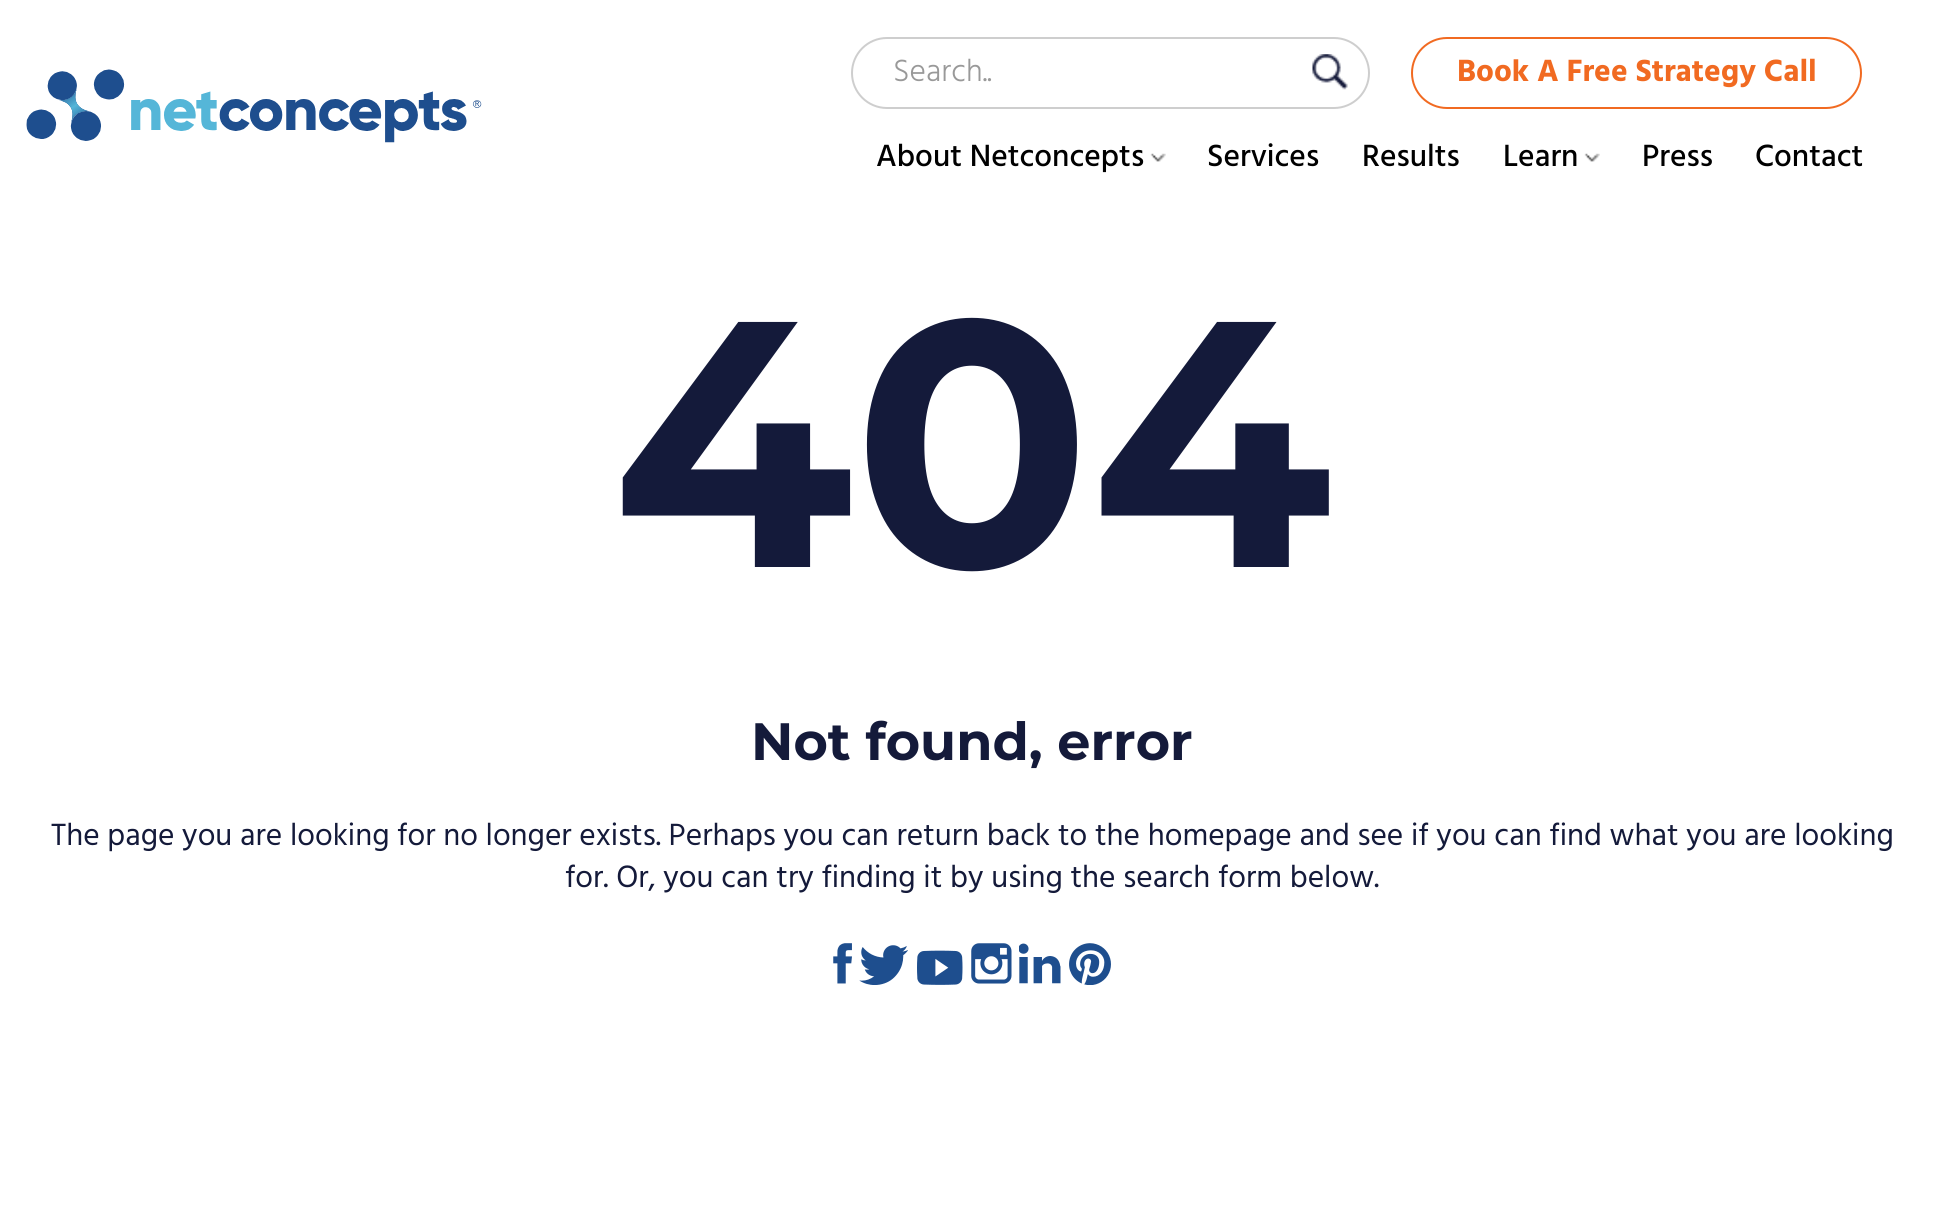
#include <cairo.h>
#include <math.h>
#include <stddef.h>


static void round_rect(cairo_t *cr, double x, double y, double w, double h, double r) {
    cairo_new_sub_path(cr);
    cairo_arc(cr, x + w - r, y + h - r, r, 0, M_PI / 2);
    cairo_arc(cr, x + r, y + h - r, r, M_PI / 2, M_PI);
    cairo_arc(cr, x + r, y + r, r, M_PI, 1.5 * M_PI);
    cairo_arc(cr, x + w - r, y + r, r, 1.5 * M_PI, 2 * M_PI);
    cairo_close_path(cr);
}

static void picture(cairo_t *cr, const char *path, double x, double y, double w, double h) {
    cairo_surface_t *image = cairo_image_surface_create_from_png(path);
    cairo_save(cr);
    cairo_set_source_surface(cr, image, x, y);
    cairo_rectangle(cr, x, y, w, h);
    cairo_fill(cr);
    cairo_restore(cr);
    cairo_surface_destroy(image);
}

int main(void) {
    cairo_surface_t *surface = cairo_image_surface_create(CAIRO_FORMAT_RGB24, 1944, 1209);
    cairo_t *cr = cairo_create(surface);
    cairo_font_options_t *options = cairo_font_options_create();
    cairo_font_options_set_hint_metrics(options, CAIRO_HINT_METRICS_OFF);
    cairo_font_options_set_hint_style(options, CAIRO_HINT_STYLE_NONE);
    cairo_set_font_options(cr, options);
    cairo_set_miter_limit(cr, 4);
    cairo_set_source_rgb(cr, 1, 1, 1);
    cairo_paint(cr);
    picture(cr, "img1.png", 26, 69, 456, 74);
    round_rect(cr, 852, 38, 517, 70, 35);
    cairo_set_source_rgb(cr, 0.808, 0.808, 0.808);
    cairo_stroke(cr);
    cairo_select_font_face(cr, "Hind Light", CAIRO_FONT_SLANT_NORMAL, CAIRO_FONT_WEIGHT_NORMAL);
    cairo_set_font_size(cr, 31.5);
    cairo_set_source_rgb(cr, 0.6, 0.6, 0.6);
    cairo_move_to(cr, 893, 81);
    cairo_show_text(cr, "Search..");
    picture(cr, "img2.png", 1312, 54, 36, 36);
    round_rect(cr, 1412, 38, 449, 70, 35);
    cairo_set_source_rgb(cr, 0.945, 0.416, 0.129);
    cairo_stroke(cr);
    cairo_select_font_face(cr, "Hind", CAIRO_FONT_SLANT_NORMAL, CAIRO_FONT_WEIGHT_BOLD);
    cairo_move_to(cr, 1457, 81);
    cairo_show_text(cr, "Book A Free Strategy Call");
    cairo_select_font_face(cr, "Hind Medium", CAIRO_FONT_SLANT_NORMAL, CAIRO_FONT_WEIGHT_NORMAL);
    cairo_set_source_rgb(cr, 0, 0, 0);
    cairo_move_to(cr, 876, 166);
    cairo_show_text(cr, "About Netconcepts");
    picture(cr, "img3.png", 1150, 153, 16, 9);
    cairo_move_to(cr, 1207, 166);
    cairo_show_text(cr, "Services");
    cairo_move_to(cr, 1362, 166);
    cairo_show_text(cr, "Results");
    cairo_move_to(cr, 1503, 166);
    cairo_show_text(cr, "Learn");
    picture(cr, "img4.png", 1584, 153, 16, 9);
    cairo_move_to(cr, 1642, 166);
    cairo_show_text(cr, "Press");
    cairo_move_to(cr, 1755, 166);
    cairo_show_text(cr, "Contact");
    cairo_select_font_face(cr, "Montserrat", CAIRO_FONT_SLANT_NORMAL, CAIRO_FONT_WEIGHT_BOLD);
    cairo_set_font_size(cr, 350);
    cairo_set_source_rgb(cr, 0.082, 0.102, 0.227);
    cairo_move_to(cr, 612, 567);
    cairo_show_text(cr, "404");
    cairo_set_font_size(cr, 52.5);
    cairo_move_to(cr, 751, 760);
    cairo_show_text(cr, "Not found, error");
    cairo_select_font_face(cr, "Hind", CAIRO_FONT_SLANT_NORMAL, CAIRO_FONT_WEIGHT_NORMAL);
    cairo_set_font_size(cr, 31.5);
    cairo_move_to(cr, 51, 845);
    cairo_show_text(cr, "The page you are looking for no longer exists. Perhaps you can return back to the homepage and see if you can find what you are looking");
    cairo_move_to(cr, 565, 887);
    cairo_show_text(cr, "for. Or, you can try finding it by using the search form below.");
    picture(cr, "img5.png", 833, 943, 19, 41);
    picture(cr, "img6.png", 859, 945, 49, 40);
    picture(cr, "img7.png", 917, 950, 46, 35);
    picture(cr, "img8.png", 971, 943, 41, 41);
    picture(cr, "img9.png", 1019, 943, 42, 41);
    picture(cr, "img10.png", 1069, 943, 42, 42);
    cairo_surface_write_to_png(surface, "page.png");
    cairo_font_options_destroy(options);
    cairo_destroy(cr);
    cairo_surface_destroy(surface);
    return 0;
}
